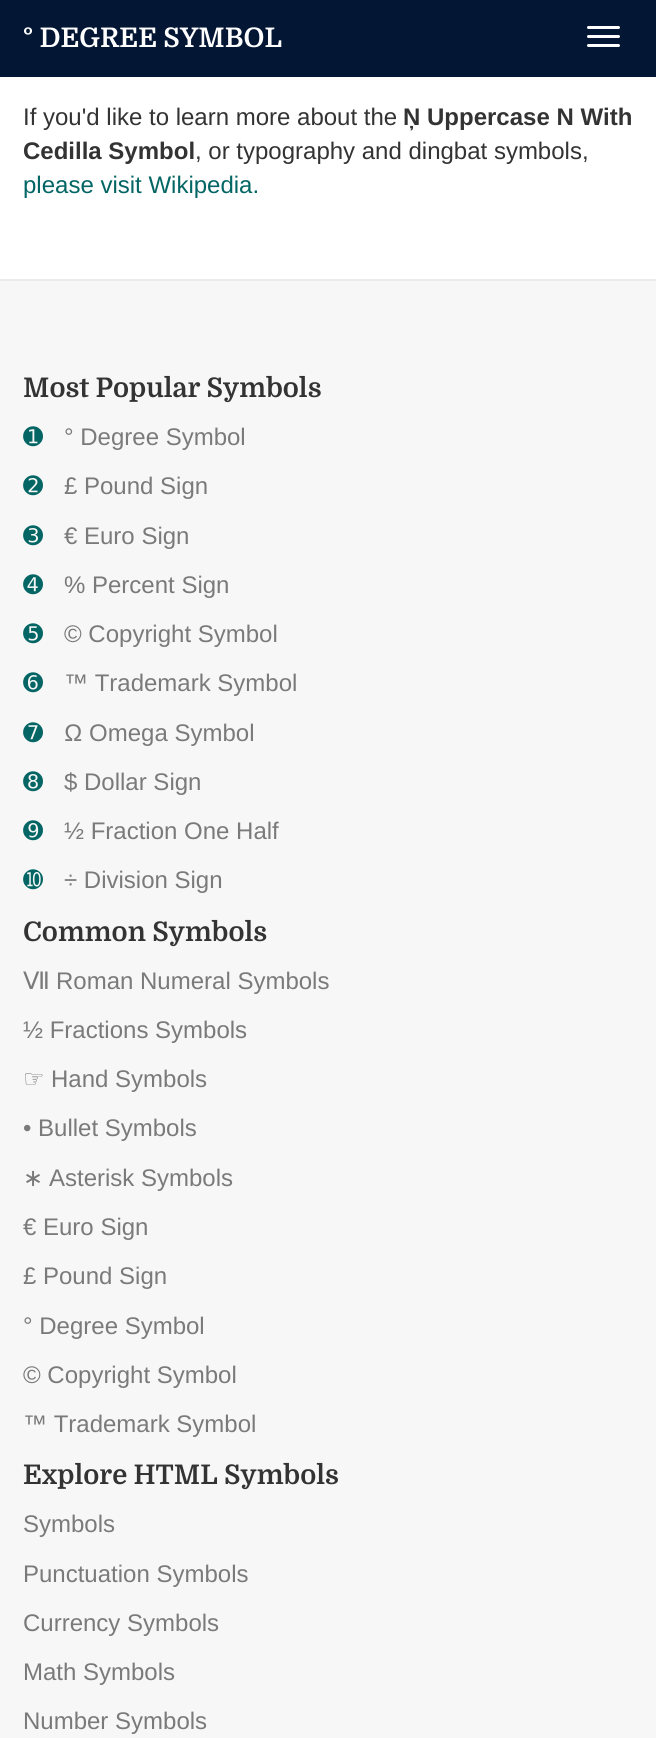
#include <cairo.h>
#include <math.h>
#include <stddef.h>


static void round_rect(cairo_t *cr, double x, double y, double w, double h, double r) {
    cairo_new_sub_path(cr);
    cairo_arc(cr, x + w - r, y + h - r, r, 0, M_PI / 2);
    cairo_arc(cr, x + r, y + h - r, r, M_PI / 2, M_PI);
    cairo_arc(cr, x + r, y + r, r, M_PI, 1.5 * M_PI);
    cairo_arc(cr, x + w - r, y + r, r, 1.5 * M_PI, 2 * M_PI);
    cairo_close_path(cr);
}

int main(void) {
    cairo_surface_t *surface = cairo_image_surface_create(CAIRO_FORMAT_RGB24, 656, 1738);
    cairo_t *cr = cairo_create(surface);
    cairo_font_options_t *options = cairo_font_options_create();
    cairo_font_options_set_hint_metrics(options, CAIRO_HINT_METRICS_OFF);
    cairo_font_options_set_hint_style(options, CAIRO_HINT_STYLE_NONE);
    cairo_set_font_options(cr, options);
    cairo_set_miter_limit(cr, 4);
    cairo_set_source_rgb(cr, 1, 1, 1);
    cairo_paint(cr);
    cairo_set_source_rgb(cr, 0.012, 0.086, 0.204);
    cairo_rectangle(cr, 0, 0, 656, 77);
    cairo_fill(cr);
    cairo_select_font_face(cr, "Domine", CAIRO_FONT_SLANT_NORMAL, CAIRO_FONT_WEIGHT_BOLD);
    cairo_set_font_size(cr, 27);
    cairo_set_source_rgb(cr, 1, 1, 1);
    cairo_move_to(cr, 23, 47);
    cairo_show_text(cr, "° DEGREE SYMBOL");
    round_rect(cr, 587, 26, 33, 3, 1.5);
    cairo_fill(cr);
    round_rect(cr, 587, 35, 33, 3, 1.5);
    cairo_fill(cr);
    round_rect(cr, 587, 44, 33, 3, 1.5);
    cairo_fill(cr);
    cairo_select_font_face(cr, "Liberation Sans", CAIRO_FONT_SLANT_NORMAL, CAIRO_FONT_WEIGHT_NORMAL);
    cairo_set_font_size(cr, 24);
    cairo_set_source_rgb(cr, 0.2, 0.2, 0.2);
    cairo_move_to(cr, 23, 125);
    cairo_show_text(cr, "If you'd like to learn more about the");
    cairo_select_font_face(cr, "Liberation Sans", CAIRO_FONT_SLANT_NORMAL, CAIRO_FONT_WEIGHT_BOLD);
    cairo_move_to(cr, 403, 125);
    cairo_show_text(cr, "Ņ Uppercase N With");
    cairo_move_to(cr, 23, 159);
    cairo_show_text(cr, "Cedilla Symbol");
    cairo_select_font_face(cr, "Liberation Sans", CAIRO_FONT_SLANT_NORMAL, CAIRO_FONT_WEIGHT_NORMAL);
    cairo_move_to(cr, 195, 159);
    cairo_show_text(cr, ", or typography and dingbat symbols,");
    cairo_set_source_rgb(cr, 0.012, 0.396, 0.392);
    cairo_move_to(cr, 23, 193);
    cairo_show_text(cr, "please visit Wikipedia.");
    cairo_set_source_rgb(cr, 0.965, 0.965, 0.965);
    cairo_rectangle(cr, 0, 281, 656, 1457);
    cairo_fill(cr);
    cairo_set_source_rgb(cr, 0.918, 0.918, 0.918);
    cairo_rectangle(cr, 0, 279, 656, 2);
    cairo_fill(cr);
    cairo_select_font_face(cr, "Domine", CAIRO_FONT_SLANT_NORMAL, CAIRO_FONT_WEIGHT_BOLD);
    cairo_set_font_size(cr, 27);
    cairo_set_source_rgb(cr, 0.2, 0.2, 0.2);
    cairo_move_to(cr, 23, 397);
    cairo_show_text(cr, "Most Popular Symbols");
    cairo_save(cr);
    cairo_rectangle(cr, 23, 422, 612, 34);
    cairo_clip(cr);
    cairo_select_font_face(cr, "DejaVu Sans", CAIRO_FONT_SLANT_NORMAL, CAIRO_FONT_WEIGHT_NORMAL);
    cairo_set_font_size(cr, 24);
    cairo_set_source_rgb(cr, 0.012, 0.396, 0.392);
    cairo_move_to(cr, 23, 445);
    cairo_show_text(cr, "➊");
    cairo_restore(cr);
    cairo_select_font_face(cr, "Liberation Sans", CAIRO_FONT_SLANT_NORMAL, CAIRO_FONT_WEIGHT_NORMAL);
    cairo_set_font_size(cr, 24);
    cairo_set_source_rgb(cr, 0.478, 0.478, 0.478);
    cairo_move_to(cr, 64, 445);
    cairo_show_text(cr, "° Degree Symbol");
    cairo_save(cr);
    cairo_rectangle(cr, 23, 471, 612, 33);
    cairo_clip(cr);
    cairo_select_font_face(cr, "DejaVu Sans", CAIRO_FONT_SLANT_NORMAL, CAIRO_FONT_WEIGHT_NORMAL);
    cairo_set_source_rgb(cr, 0.012, 0.396, 0.392);
    cairo_move_to(cr, 23, 494);
    cairo_show_text(cr, "➋");
    cairo_restore(cr);
    cairo_move_to(cr, 64, 494);
    cairo_show_text(cr, "£ Pound Sign");
    cairo_save(cr);
    cairo_rectangle(cr, 23, 519, 612, 35);
    cairo_clip(cr);
    cairo_select_font_face(cr, "DejaVu Sans", CAIRO_FONT_SLANT_NORMAL, CAIRO_FONT_WEIGHT_NORMAL);
    cairo_set_source_rgb(cr, 0.012, 0.396, 0.392);
    cairo_move_to(cr, 23, 544);
    cairo_show_text(cr, "➌");
    cairo_restore(cr);
    cairo_move_to(cr, 64, 544);
    cairo_show_text(cr, "€ Euro Sign");
    cairo_save(cr);
    cairo_rectangle(cr, 23, 569, 612, 34);
    cairo_clip(cr);
    cairo_select_font_face(cr, "DejaVu Sans", CAIRO_FONT_SLANT_NORMAL, CAIRO_FONT_WEIGHT_NORMAL);
    cairo_set_source_rgb(cr, 0.012, 0.396, 0.392);
    cairo_move_to(cr, 23, 593);
    cairo_show_text(cr, "➍");
    cairo_restore(cr);
    cairo_move_to(cr, 64, 593);
    cairo_show_text(cr, "% Percent Sign");
    cairo_save(cr);
    cairo_rectangle(cr, 23, 618, 612, 35);
    cairo_clip(cr);
    cairo_select_font_face(cr, "DejaVu Sans", CAIRO_FONT_SLANT_NORMAL, CAIRO_FONT_WEIGHT_NORMAL);
    cairo_set_source_rgb(cr, 0.012, 0.396, 0.392);
    cairo_move_to(cr, 23, 642);
    cairo_show_text(cr, "➎");
    cairo_restore(cr);
    cairo_move_to(cr, 64, 642);
    cairo_show_text(cr, "© Copyright Symbol");
    cairo_save(cr);
    cairo_rectangle(cr, 23, 668, 612, 34);
    cairo_clip(cr);
    cairo_select_font_face(cr, "DejaVu Sans", CAIRO_FONT_SLANT_NORMAL, CAIRO_FONT_WEIGHT_NORMAL);
    cairo_set_source_rgb(cr, 0.012, 0.396, 0.392);
    cairo_move_to(cr, 23, 691);
    cairo_show_text(cr, "➏");
    cairo_restore(cr);
    cairo_move_to(cr, 64, 691);
    cairo_show_text(cr, "™ Trademark Symbol");
    cairo_save(cr);
    cairo_rectangle(cr, 23, 717, 612, 35);
    cairo_clip(cr);
    cairo_select_font_face(cr, "DejaVu Sans", CAIRO_FONT_SLANT_NORMAL, CAIRO_FONT_WEIGHT_NORMAL);
    cairo_set_source_rgb(cr, 0.012, 0.396, 0.392);
    cairo_move_to(cr, 23, 741);
    cairo_show_text(cr, "➐");
    cairo_restore(cr);
    cairo_move_to(cr, 64, 741);
    cairo_show_text(cr, "Ω Omega Symbol");
    cairo_save(cr);
    cairo_rectangle(cr, 23, 767, 612, 33);
    cairo_clip(cr);
    cairo_select_font_face(cr, "DejaVu Sans", CAIRO_FONT_SLANT_NORMAL, CAIRO_FONT_WEIGHT_NORMAL);
    cairo_set_source_rgb(cr, 0.012, 0.396, 0.392);
    cairo_move_to(cr, 23, 790);
    cairo_show_text(cr, "➑");
    cairo_restore(cr);
    cairo_move_to(cr, 64, 790);
    cairo_show_text(cr, "$ Dollar Sign");
    cairo_save(cr);
    cairo_rectangle(cr, 23, 815, 612, 34);
    cairo_clip(cr);
    cairo_select_font_face(cr, "DejaVu Sans", CAIRO_FONT_SLANT_NORMAL, CAIRO_FONT_WEIGHT_NORMAL);
    cairo_set_source_rgb(cr, 0.012, 0.396, 0.392);
    cairo_move_to(cr, 23, 839);
    cairo_show_text(cr, "➒");
    cairo_restore(cr);
    cairo_move_to(cr, 64, 839);
    cairo_show_text(cr, "½ Fraction One Half");
    cairo_save(cr);
    cairo_rectangle(cr, 23, 864, 612, 35);
    cairo_clip(cr);
    cairo_select_font_face(cr, "DejaVu Sans", CAIRO_FONT_SLANT_NORMAL, CAIRO_FONT_WEIGHT_NORMAL);
    cairo_set_source_rgb(cr, 0.012, 0.396, 0.392);
    cairo_move_to(cr, 23, 888);
    cairo_show_text(cr, "➓");
    cairo_restore(cr);
    cairo_move_to(cr, 64, 888);
    cairo_show_text(cr, "÷ Division Sign");
    cairo_select_font_face(cr, "Domine", CAIRO_FONT_SLANT_NORMAL, CAIRO_FONT_WEIGHT_BOLD);
    cairo_set_font_size(cr, 27);
    cairo_set_source_rgb(cr, 0.2, 0.2, 0.2);
    cairo_move_to(cr, 23, 941);
    cairo_show_text(cr, "Common Symbols");
    cairo_select_font_face(cr, "DejaVu Sans", CAIRO_FONT_SLANT_NORMAL, CAIRO_FONT_WEIGHT_NORMAL);
    cairo_set_font_size(cr, 24);
    cairo_set_source_rgb(cr, 0.478, 0.478, 0.478);
    cairo_move_to(cr, 23, 989);
    cairo_show_text(cr, "Ⅶ");
    cairo_select_font_face(cr, "Liberation Sans", CAIRO_FONT_SLANT_NORMAL, CAIRO_FONT_WEIGHT_NORMAL);
    cairo_move_to(cr, 56, 989);
    cairo_show_text(cr, "Roman Numeral Symbols");
    cairo_move_to(cr, 23, 1038);
    cairo_show_text(cr, "½ Fractions Symbols");
    cairo_select_font_face(cr, "DejaVu Sans", CAIRO_FONT_SLANT_NORMAL, CAIRO_FONT_WEIGHT_NORMAL);
    cairo_move_to(cr, 23, 1087);
    cairo_show_text(cr, "☞");
    cairo_select_font_face(cr, "Liberation Sans", CAIRO_FONT_SLANT_NORMAL, CAIRO_FONT_WEIGHT_NORMAL);
    cairo_move_to(cr, 51, 1087);
    cairo_show_text(cr, "Hand Symbols");
    cairo_move_to(cr, 23, 1136);
    cairo_show_text(cr, "• Bullet Symbols");
    cairo_select_font_face(cr, "DejaVu Sans", CAIRO_FONT_SLANT_NORMAL, CAIRO_FONT_WEIGHT_NORMAL);
    cairo_move_to(cr, 23, 1186);
    cairo_show_text(cr, "∗");
    cairo_select_font_face(cr, "Liberation Sans", CAIRO_FONT_SLANT_NORMAL, CAIRO_FONT_WEIGHT_NORMAL);
    cairo_move_to(cr, 49, 1186);
    cairo_show_text(cr, "Asterisk Symbols");
    cairo_move_to(cr, 23, 1235);
    cairo_show_text(cr, "€ Euro Sign");
    cairo_move_to(cr, 23, 1284);
    cairo_show_text(cr, "£ Pound Sign");
    cairo_move_to(cr, 23, 1334);
    cairo_show_text(cr, "° Degree Symbol");
    cairo_move_to(cr, 23, 1383);
    cairo_show_text(cr, "© Copyright Symbol");
    cairo_move_to(cr, 23, 1432);
    cairo_show_text(cr, "™ Trademark Symbol");
    cairo_select_font_face(cr, "Domine", CAIRO_FONT_SLANT_NORMAL, CAIRO_FONT_WEIGHT_BOLD);
    cairo_set_font_size(cr, 27);
    cairo_set_source_rgb(cr, 0.2, 0.2, 0.2);
    cairo_move_to(cr, 23, 1484);
    cairo_show_text(cr, "Explore HTML Symbols");
    cairo_select_font_face(cr, "Liberation Sans", CAIRO_FONT_SLANT_NORMAL, CAIRO_FONT_WEIGHT_NORMAL);
    cairo_set_font_size(cr, 24);
    cairo_set_source_rgb(cr, 0.478, 0.478, 0.478);
    cairo_move_to(cr, 23, 1532);
    cairo_show_text(cr, "Symbols");
    cairo_move_to(cr, 23, 1582);
    cairo_show_text(cr, "Punctuation Symbols");
    cairo_move_to(cr, 23, 1631);
    cairo_show_text(cr, "Currency Symbols");
    cairo_move_to(cr, 23, 1680);
    cairo_show_text(cr, "Math Symbols");
    cairo_move_to(cr, 23, 1729);
    cairo_show_text(cr, "Number Symbols");
    cairo_surface_write_to_png(surface, "page.png");
    cairo_font_options_destroy(options);
    cairo_destroy(cr);
    cairo_surface_destroy(surface);
    return 0;
}
